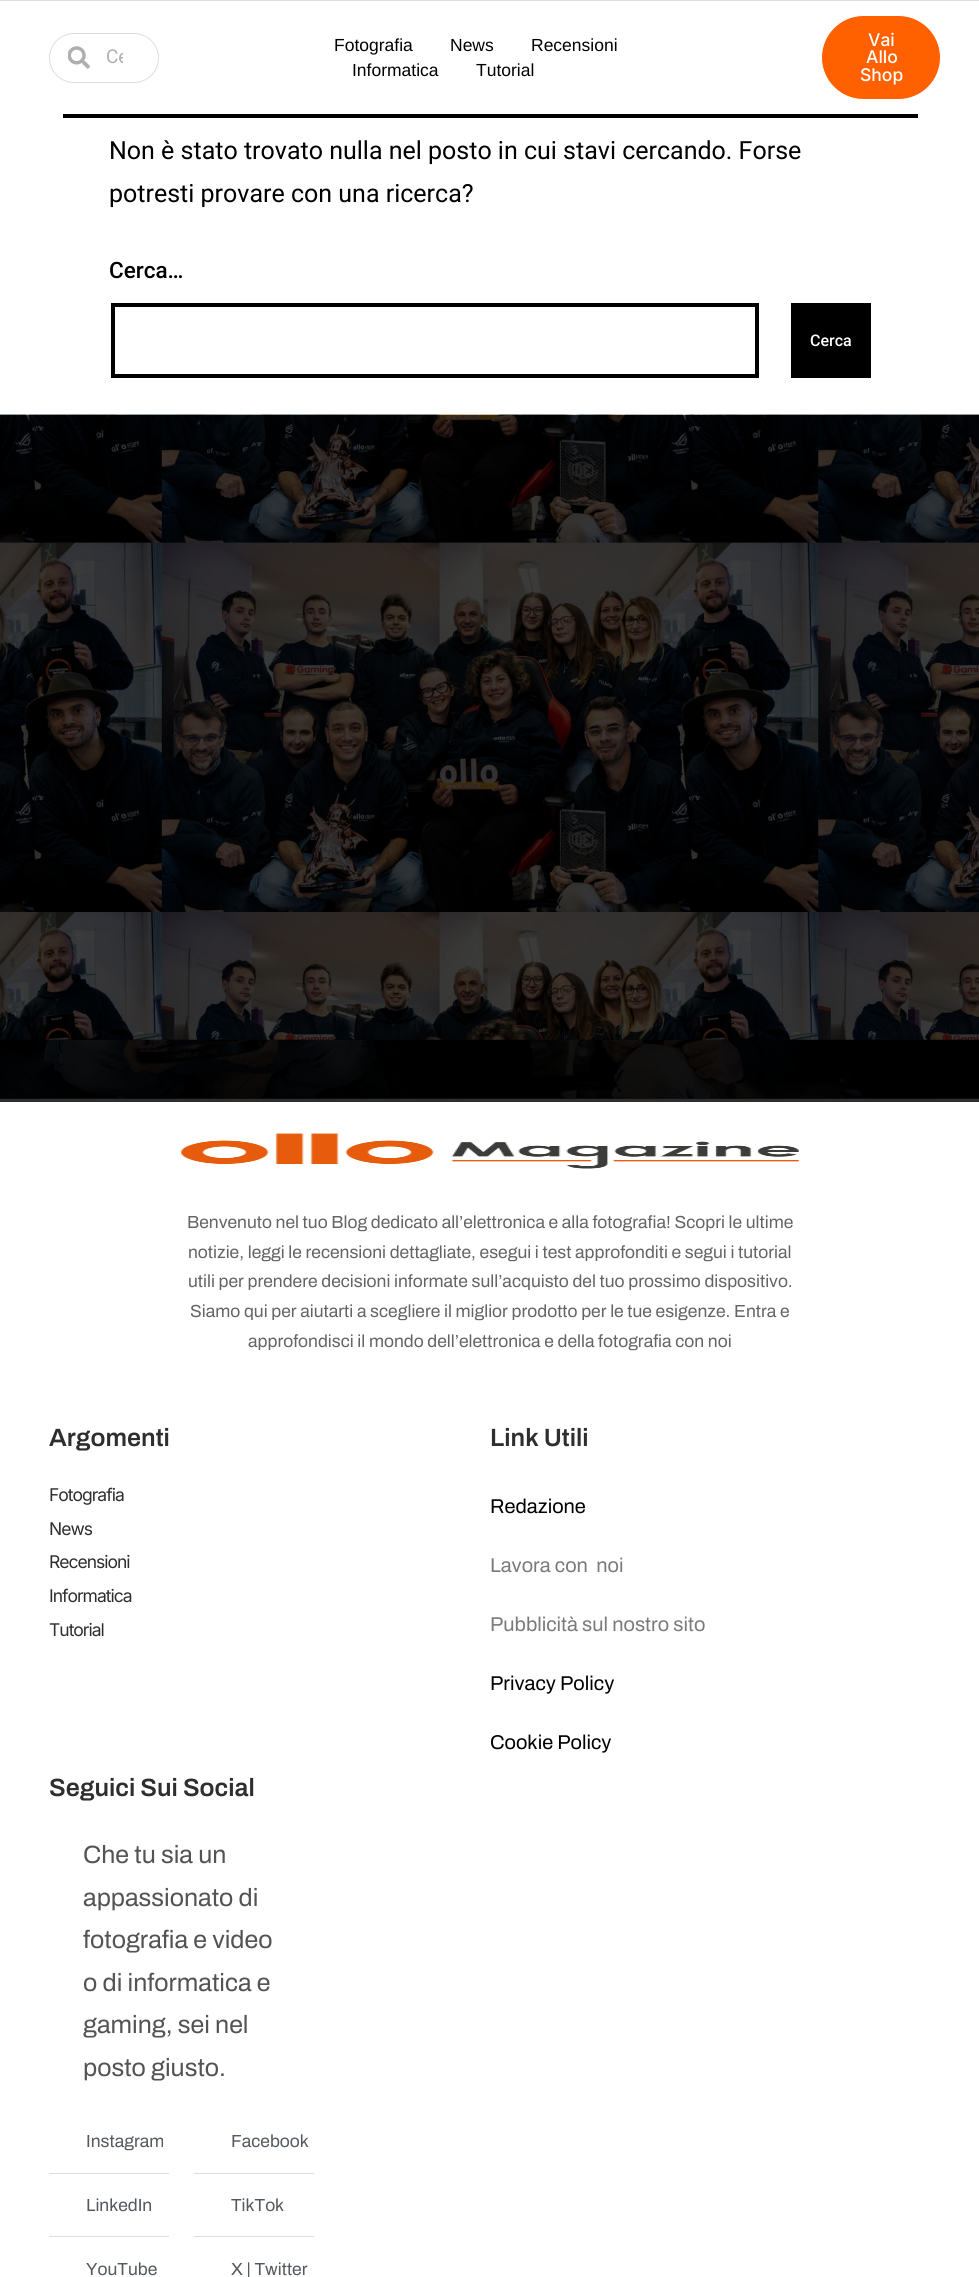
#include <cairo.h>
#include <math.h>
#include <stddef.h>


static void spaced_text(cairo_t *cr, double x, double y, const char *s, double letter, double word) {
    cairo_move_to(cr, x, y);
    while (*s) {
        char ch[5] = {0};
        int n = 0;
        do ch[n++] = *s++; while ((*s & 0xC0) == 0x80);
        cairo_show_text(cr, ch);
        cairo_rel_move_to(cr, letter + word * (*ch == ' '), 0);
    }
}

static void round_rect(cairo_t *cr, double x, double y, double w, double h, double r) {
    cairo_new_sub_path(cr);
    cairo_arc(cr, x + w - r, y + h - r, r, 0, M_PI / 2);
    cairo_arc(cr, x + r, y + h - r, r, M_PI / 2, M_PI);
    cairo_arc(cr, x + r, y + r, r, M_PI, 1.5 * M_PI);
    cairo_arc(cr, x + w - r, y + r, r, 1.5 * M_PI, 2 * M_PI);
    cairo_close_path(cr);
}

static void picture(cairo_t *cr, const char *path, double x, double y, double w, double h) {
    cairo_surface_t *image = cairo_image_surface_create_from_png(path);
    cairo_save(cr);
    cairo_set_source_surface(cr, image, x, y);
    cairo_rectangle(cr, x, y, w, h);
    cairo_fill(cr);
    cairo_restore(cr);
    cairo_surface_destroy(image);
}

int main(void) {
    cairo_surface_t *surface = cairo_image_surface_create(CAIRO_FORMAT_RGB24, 979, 2277);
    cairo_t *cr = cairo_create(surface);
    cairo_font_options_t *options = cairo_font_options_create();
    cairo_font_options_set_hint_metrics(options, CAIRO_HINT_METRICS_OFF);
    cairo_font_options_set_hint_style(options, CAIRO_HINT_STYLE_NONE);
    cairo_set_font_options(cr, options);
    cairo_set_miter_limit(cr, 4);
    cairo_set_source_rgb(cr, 1, 1, 1);
    cairo_paint(cr);
    cairo_set_source_rgb(cr, 0.071, 0.071, 0.071);
    cairo_rectangle(cr, 0, 1098, 979, 1);
    cairo_fill(cr);
    cairo_set_source_rgb(cr, 0.867, 0.867, 0.867);
    cairo_rectangle(cr, 0, 0, 979, 1);
    cairo_fill(cr);
    round_rect(cr, 49.5, 33.5, 109, 49, 24.5);
    cairo_set_line_width(cr, 1);
    cairo_stroke(cr);
    picture(cr, "img1.png", 68, 46, 22, 23);
    cairo_save(cr);
    cairo_rectangle(cr, 106, 46, 17, 23);
    cairo_clip(cr);
    cairo_select_font_face(cr, "Roboto", CAIRO_FONT_SLANT_NORMAL, CAIRO_FONT_WEIGHT_NORMAL);
    cairo_set_font_size(cr, 19);
    cairo_set_source_rgb(cr, 0.686, 0.686, 0.686);
    cairo_move_to(cr, 106, 63);
    cairo_show_text(cr, "Ce");
    cairo_restore(cr);
    cairo_select_font_face(cr, "Liberation Sans", CAIRO_FONT_SLANT_NORMAL, CAIRO_FONT_WEIGHT_NORMAL);
    cairo_set_font_size(cr, 17.5);
    cairo_set_source_rgb(cr, 0, 0, 0);
    cairo_move_to(cr, 334, 51);
    cairo_show_text(cr, "Fotografia");
    cairo_move_to(cr, 450, 51);
    cairo_show_text(cr, "News");
    cairo_move_to(cr, 531, 51);
    cairo_show_text(cr, "Recensioni");
    cairo_move_to(cr, 352, 76);
    cairo_show_text(cr, "Informatica");
    cairo_move_to(cr, 476, 76);
    cairo_show_text(cr, "Tutorial");
    cairo_set_source_rgb(cr, 1, 0.376, 0);
    round_rect(cr, 821.5, 15.5, 119, 84, 42);
    cairo_fill_preserve(cr);
    cairo_set_source_rgb(cr, 1, 1, 1);
    cairo_stroke(cr);
    cairo_select_font_face(cr, "Inter Medium", CAIRO_FONT_SLANT_NORMAL, CAIRO_FONT_WEIGHT_NORMAL);
    cairo_move_to(cr, 868, 46);
    cairo_show_text(cr, "Vai");
    cairo_move_to(cr, 866, 63);
    cairo_show_text(cr, "Allo");
    cairo_move_to(cr, 860, 81);
    cairo_show_text(cr, "Shop");
    cairo_set_source_rgb(cr, 0, 0, 0);
    cairo_rectangle(cr, 63, 114, 855, 4);
    cairo_fill(cr);
    cairo_select_font_face(cr, "Roboto", CAIRO_FONT_SLANT_NORMAL, CAIRO_FONT_WEIGHT_NORMAL);
    cairo_set_font_size(cr, 25);
    cairo_move_to(cr, 109, 159);
    cairo_show_text(cr, "Non è stato trovato nulla nel posto in cui stavi cercando. Forse");
    cairo_move_to(cr, 109, 202);
    cairo_show_text(cr, "potresti provare con una ricerca?");
    cairo_select_font_face(cr, "Roboto Medium", CAIRO_FONT_SLANT_NORMAL, CAIRO_FONT_WEIGHT_NORMAL);
    cairo_set_font_size(cr, 22.5);
    cairo_move_to(cr, 109, 278);
    cairo_show_text(cr, "Cerca…");
    cairo_rectangle(cr, 113, 305, 644, 71);
    cairo_set_line_width(cr, 4);
    cairo_stroke(cr);
    cairo_rectangle(cr, 791, 303, 80, 75);
    cairo_fill(cr);
    cairo_set_font_size(cr, 16);
    cairo_set_source_rgb(cr, 1, 1, 1);
    cairo_move_to(cr, 810, 346);
    cairo_show_text(cr, "Cerca");
    picture(cr, "img2.png", 0, 414, 979, 685);
    picture(cr, "img3.png", 0, 414, 979, 626);
    cairo_set_source_rgb(cr, 0.18, 0.18, 0.18);
    cairo_rectangle(cr, 0, 1099, 979, 3);
    cairo_fill(cr);
    picture(cr, "img4.png", 181, 1133, 618, 36);
    cairo_select_font_face(cr, "Archivo", CAIRO_FONT_SLANT_NORMAL, CAIRO_FONT_WEIGHT_NORMAL);
    cairo_set_font_size(cr, 17.5);
    cairo_set_source_rgb(cr, 0.392, 0.392, 0.392);
    cairo_move_to(cr, 187, 1228);
    cairo_show_text(cr, "Benvenuto nel tuo Blog dedicato all’elettronica e alla fotografia! Scopri le ultime");
    cairo_move_to(cr, 188, 1258);
    cairo_show_text(cr, "notizie, leggi le recensioni dettagliate, esegui i test approfonditi e segui i tutorial");
    cairo_move_to(cr, 188, 1287);
    cairo_show_text(cr, "utili per prendere decisioni informate sull’acquisto del tuo prossimo dispositivo.");
    cairo_move_to(cr, 190, 1317);
    cairo_show_text(cr, "Siamo qui per aiutarti a scegliere il miglior prodotto per le tue esigenze. Entra e");
    cairo_move_to(cr, 248, 1347);
    cairo_show_text(cr, "approfondisci il mondo dell’elettronica e della fotografia con noi");
    cairo_select_font_face(cr, "Archivo SemiBold", CAIRO_FONT_SLANT_NORMAL, CAIRO_FONT_WEIGHT_NORMAL);
    cairo_set_font_size(cr, 25);
    cairo_set_source_rgb(cr, 0.18, 0.18, 0.18);
    cairo_move_to(cr, 49, 1446);
    cairo_show_text(cr, "Argomenti");
    cairo_select_font_face(cr, "Inter", CAIRO_FONT_SLANT_NORMAL, CAIRO_FONT_WEIGHT_NORMAL);
    cairo_set_font_size(cr, 17.5);
    spaced_text(cr, 49, 1501, "Fotografia", -1, 0);
    spaced_text(cr, 49, 1535, "News", -1, 0);
    spaced_text(cr, 49, 1568, "Recensioni", -1, 0);
    spaced_text(cr, 49, 1602, "Informatica", -1, 0);
    spaced_text(cr, 49, 1636, "Tutorial", -1, 0);
    cairo_select_font_face(cr, "Archivo SemiBold", CAIRO_FONT_SLANT_NORMAL, CAIRO_FONT_WEIGHT_NORMAL);
    cairo_set_font_size(cr, 25);
    cairo_move_to(cr, 490, 1446);
    cairo_show_text(cr, "Link Utili");
    cairo_select_font_face(cr, "Archivo", CAIRO_FONT_SLANT_NORMAL, CAIRO_FONT_WEIGHT_NORMAL);
    cairo_set_font_size(cr, 20);
    cairo_set_source_rgb(cr, 0, 0, 0);
    cairo_move_to(cr, 490, 1513);
    cairo_show_text(cr, "Redazione");
    cairo_set_source_rgb(cr, 0.478, 0.478, 0.478);
    cairo_move_to(cr, 490, 1572);
    cairo_show_text(cr, "Lavora con  noi");
    cairo_move_to(cr, 490, 1631);
    cairo_show_text(cr, "Pubblicità sul nostro sito");
    cairo_set_source_rgb(cr, 0, 0, 0);
    cairo_move_to(cr, 490, 1690);
    cairo_show_text(cr, "Privacy Policy");
    cairo_move_to(cr, 490, 1749);
    cairo_show_text(cr, "Cookie Policy");
    cairo_select_font_face(cr, "Archivo SemiBold", CAIRO_FONT_SLANT_NORMAL, CAIRO_FONT_WEIGHT_NORMAL);
    cairo_set_font_size(cr, 25);
    cairo_set_source_rgb(cr, 0.18, 0.18, 0.18);
    cairo_move_to(cr, 49, 1796);
    cairo_show_text(cr, "Seguici Sui Social");
    cairo_select_font_face(cr, "Archivo", CAIRO_FONT_SLANT_NORMAL, CAIRO_FONT_WEIGHT_NORMAL);
    cairo_set_source_rgb(cr, 0.325, 0.325, 0.325);
    cairo_move_to(cr, 83, 1863);
    cairo_show_text(cr, "Che tu sia un");
    cairo_move_to(cr, 83, 1906);
    cairo_show_text(cr, "appassionato di");
    cairo_move_to(cr, 83, 1948);
    cairo_show_text(cr, "fotografia e video");
    cairo_move_to(cr, 83, 1991);
    cairo_show_text(cr, "o di informatica e");
    cairo_move_to(cr, 83, 2033);
    cairo_show_text(cr, "gaming, sei nel");
    cairo_move_to(cr, 83, 2076);
    cairo_show_text(cr, "posto giusto.");
    cairo_set_font_size(cr, 17.5);
    cairo_set_source_rgb(cr, 0.329, 0.349, 0.373);
    cairo_move_to(cr, 86, 2147);
    cairo_show_text(cr, "Instagram");
    cairo_set_source_rgb(cr, 0.867, 0.867, 0.867);
    cairo_rectangle(cr, 49, 2173, 120, 1);
    cairo_fill(cr);
    cairo_set_source_rgb(cr, 0.329, 0.349, 0.373);
    cairo_move_to(cr, 86, 2211);
    cairo_show_text(cr, "LinkedIn");
    cairo_set_source_rgb(cr, 0.867, 0.867, 0.867);
    cairo_rectangle(cr, 49, 2236, 120, 1);
    cairo_fill(cr);
    cairo_set_source_rgb(cr, 0.329, 0.349, 0.373);
    cairo_move_to(cr, 86, 2275);
    cairo_show_text(cr, "YouTube");
    cairo_move_to(cr, 231, 2147);
    cairo_show_text(cr, "Facebook");
    cairo_set_source_rgb(cr, 0.867, 0.867, 0.867);
    cairo_rectangle(cr, 194, 2173, 120, 1);
    cairo_fill(cr);
    cairo_set_source_rgb(cr, 0.329, 0.349, 0.373);
    cairo_move_to(cr, 231, 2211);
    cairo_show_text(cr, "TikTok");
    cairo_set_source_rgb(cr, 0.867, 0.867, 0.867);
    cairo_rectangle(cr, 194, 2236, 120, 1);
    cairo_fill(cr);
    cairo_set_source_rgb(cr, 0.329, 0.349, 0.373);
    cairo_move_to(cr, 231, 2275);
    cairo_show_text(cr, "X | Twitter");
    cairo_surface_write_to_png(surface, "page.png");
    cairo_font_options_destroy(options);
    cairo_destroy(cr);
    cairo_surface_destroy(surface);
    return 0;
}
